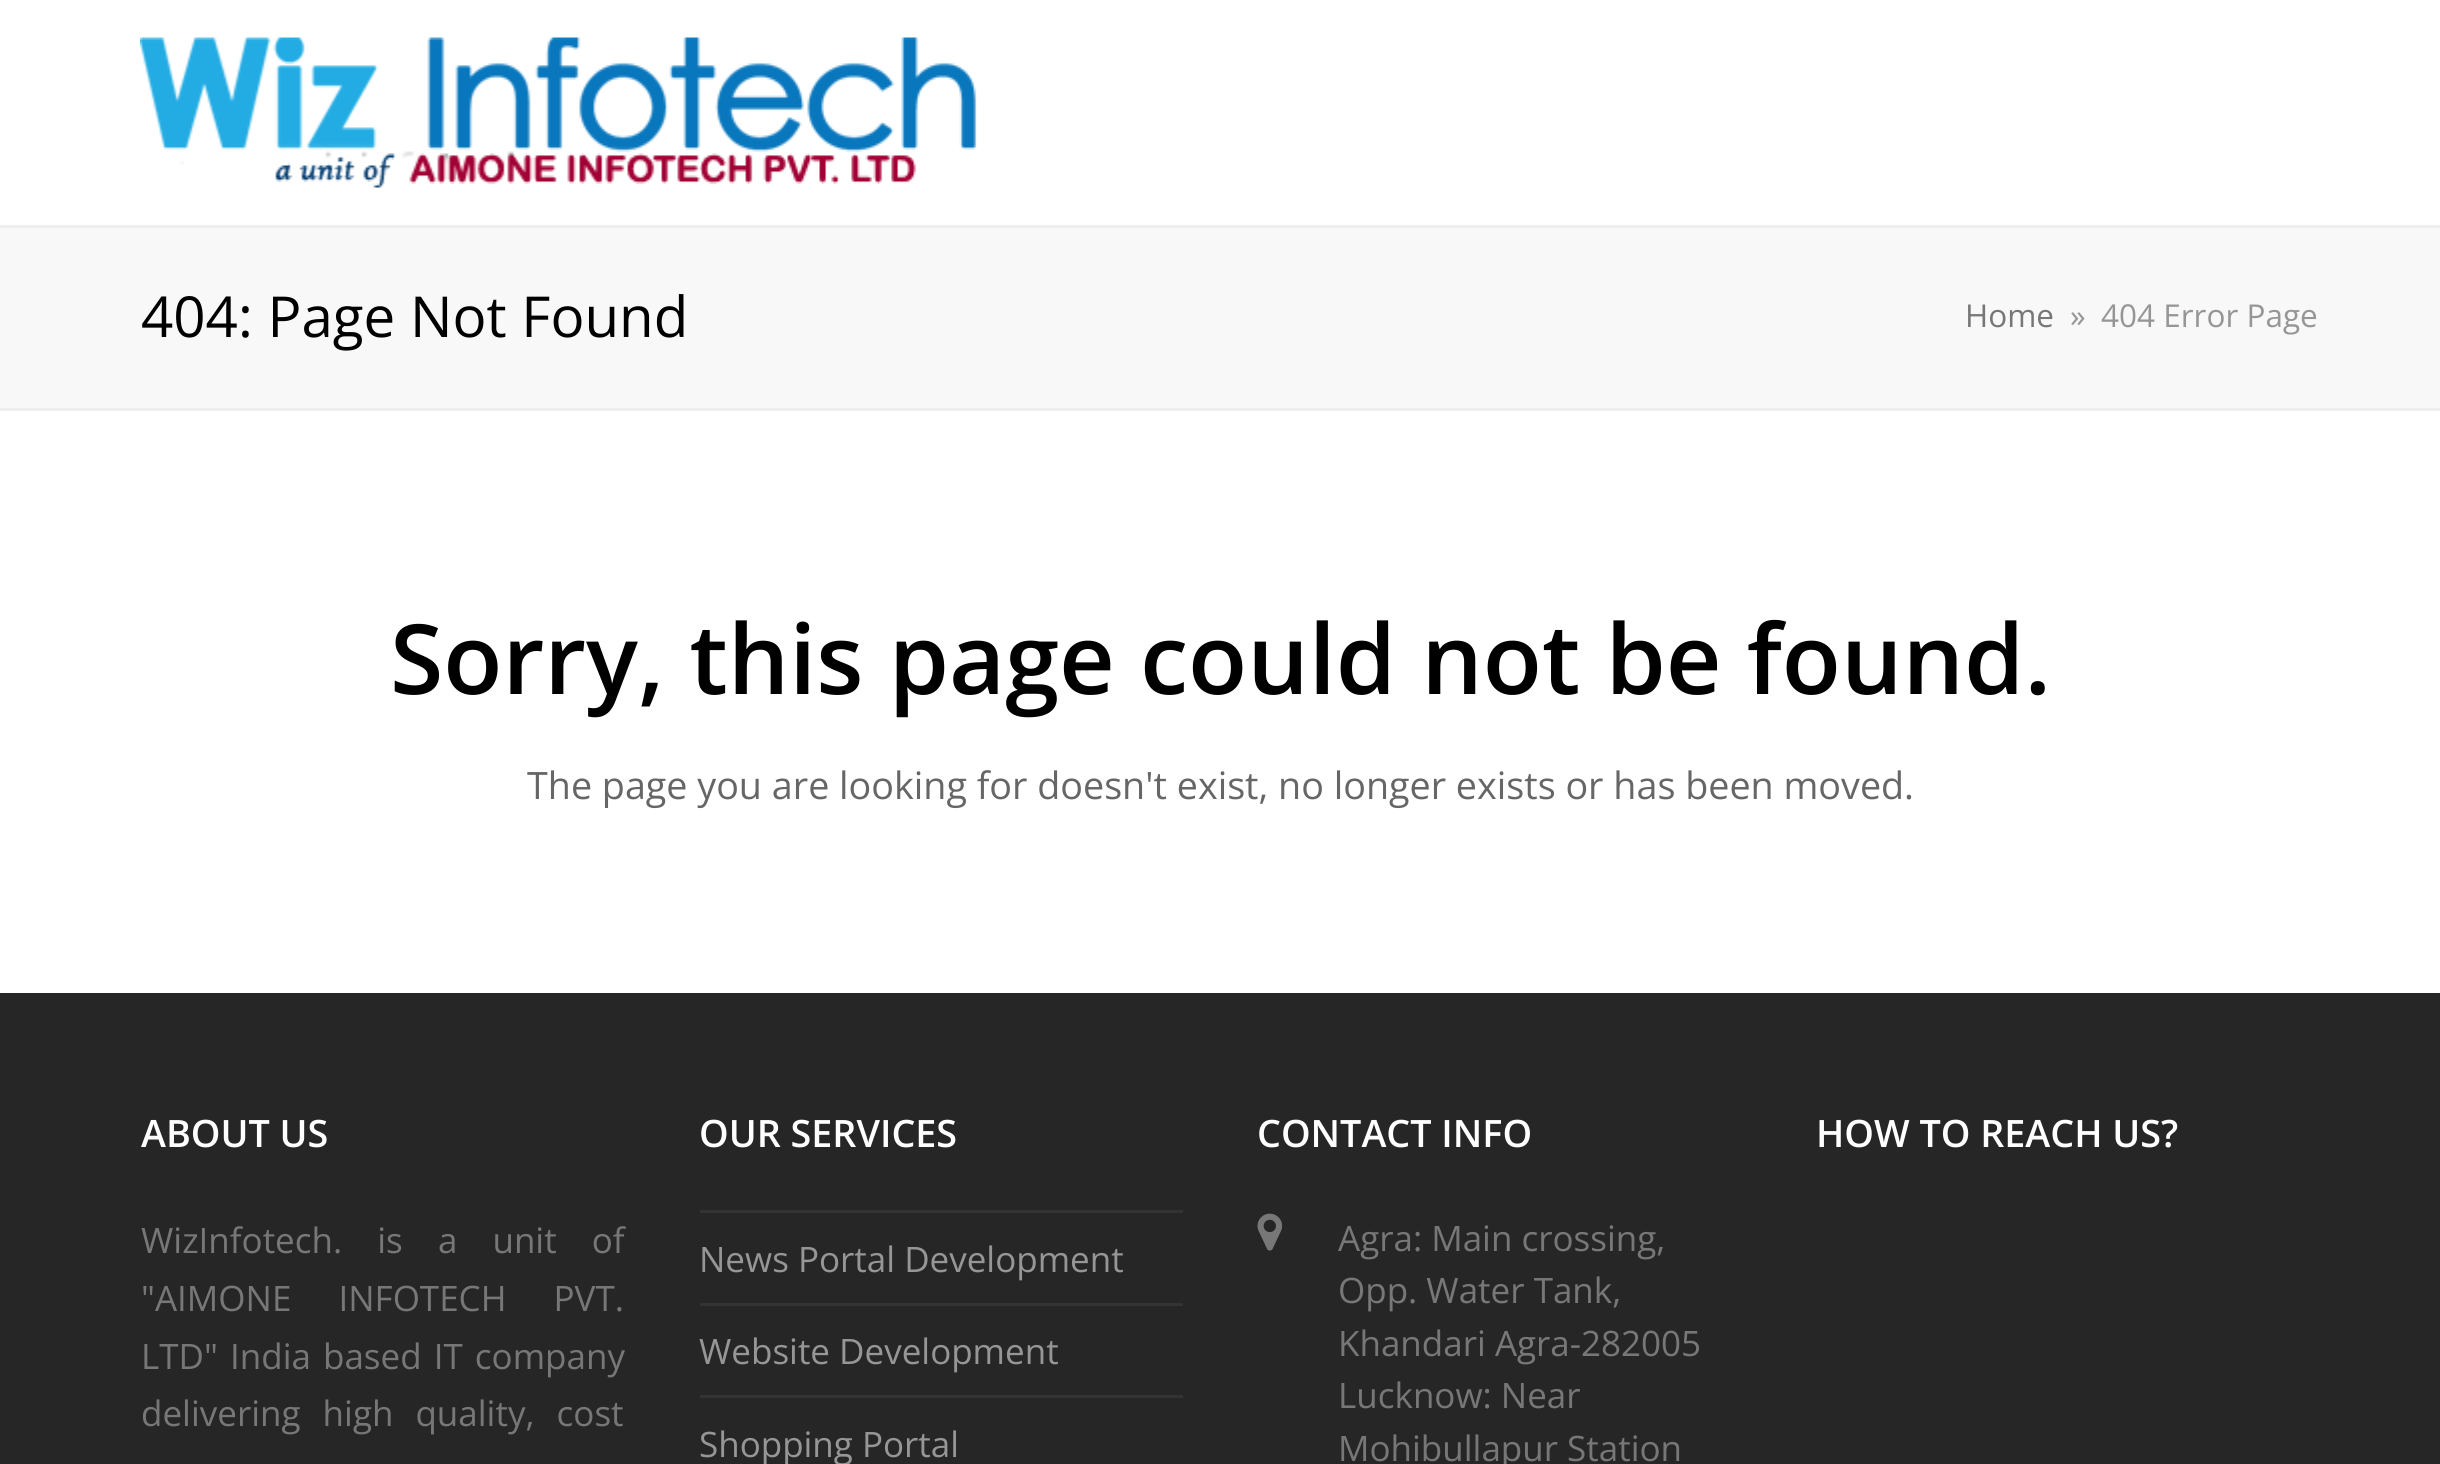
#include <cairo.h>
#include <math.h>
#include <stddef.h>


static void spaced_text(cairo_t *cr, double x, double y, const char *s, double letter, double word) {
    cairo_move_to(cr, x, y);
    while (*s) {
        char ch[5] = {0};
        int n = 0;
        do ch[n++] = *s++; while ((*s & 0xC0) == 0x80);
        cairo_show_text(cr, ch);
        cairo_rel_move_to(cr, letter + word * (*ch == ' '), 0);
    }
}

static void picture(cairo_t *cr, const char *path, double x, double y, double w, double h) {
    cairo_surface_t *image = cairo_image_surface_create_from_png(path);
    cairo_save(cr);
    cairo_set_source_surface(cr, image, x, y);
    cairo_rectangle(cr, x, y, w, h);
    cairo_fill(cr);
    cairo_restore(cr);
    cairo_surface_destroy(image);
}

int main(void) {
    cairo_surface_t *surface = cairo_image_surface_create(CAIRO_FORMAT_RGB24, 2440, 1464);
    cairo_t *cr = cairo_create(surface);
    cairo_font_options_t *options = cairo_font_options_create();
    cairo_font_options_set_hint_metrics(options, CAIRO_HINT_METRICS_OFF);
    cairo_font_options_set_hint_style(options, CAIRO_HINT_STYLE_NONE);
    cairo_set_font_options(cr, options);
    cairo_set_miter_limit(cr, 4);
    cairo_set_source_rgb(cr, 1, 1, 1);
    cairo_paint(cr);
    picture(cr, "img1.png", 140, 37, 837, 151);
    cairo_set_source_rgb(cr, 0.969, 0.969, 0.969);
    cairo_rectangle(cr, 0, 228, 2440, 180);
    cairo_fill(cr);
    cairo_set_source_rgb(cr, 0.933, 0.933, 0.933);
    cairo_rectangle(cr, 0, 225, 2440, 3);
    cairo_fill(cr);
    cairo_rectangle(cr, 0, 408, 2440, 3);
    cairo_fill(cr);
    cairo_select_font_face(cr, "Open Sans", CAIRO_FONT_SLANT_NORMAL, CAIRO_FONT_WEIGHT_NORMAL);
    cairo_set_font_size(cr, 56.5);
    cairo_set_source_rgb(cr, 0, 0, 0);
    cairo_move_to(cr, 141, 337);
    cairo_show_text(cr, "404: Page Not Found");
    cairo_set_font_size(cr, 31.5);
    cairo_set_source_rgb(cr, 0.467, 0.467, 0.467);
    cairo_move_to(cr, 1965, 327);
    cairo_show_text(cr, "Home");
    cairo_set_source_rgb(cr, 0.588, 0.588, 0.588);
    cairo_move_to(cr, 2070, 327);
    cairo_show_text(cr, "»");
    cairo_move_to(cr, 2101, 327);
    cairo_show_text(cr, "404 Error Page");
    cairo_select_font_face(cr, "Open Sans SemiBold", CAIRO_FONT_SLANT_NORMAL, CAIRO_FONT_WEIGHT_NORMAL);
    cairo_set_font_size(cr, 96.9);
    cairo_set_source_rgb(cr, 0, 0, 0);
    cairo_move_to(cr, 390, 694);
    cairo_show_text(cr, "Sorry, this page could not be found.");
    cairo_select_font_face(cr, "Open Sans", CAIRO_FONT_SLANT_NORMAL, CAIRO_FONT_WEIGHT_NORMAL);
    cairo_set_font_size(cr, 37.7);
    cairo_set_source_rgb(cr, 0.4, 0.4, 0.4);
    cairo_move_to(cr, 527, 799);
    cairo_show_text(cr, "The page you are looking for doesn't exist, no longer exists or has been moved.");
    cairo_set_source_rgb(cr, 0.149, 0.149, 0.149);
    cairo_rectangle(cr, 0, 993, 2440, 471);
    cairo_fill(cr);
    cairo_select_font_face(cr, "Open Sans SemiBold", CAIRO_FONT_SLANT_NORMAL, CAIRO_FONT_WEIGHT_NORMAL);
    cairo_set_source_rgb(cr, 1, 1, 1);
    cairo_move_to(cr, 141, 1147);
    cairo_show_text(cr, "ABOUT US");
    cairo_select_font_face(cr, "Open Sans", CAIRO_FONT_SLANT_NORMAL, CAIRO_FONT_WEIGHT_NORMAL);
    cairo_set_font_size(cr, 35);
    cairo_set_source_rgb(cr, 0.467, 0.467, 0.467);
    spaced_text(cr, 141, 1253, "WizInfotech. is a unit of", 0, 26);
    spaced_text(cr, 141, 1311, "\"AIMONE INFOTECH PVT.", 0, 38);
    spaced_text(cr, 141, 1369, "LTD\" India based IT company", 0, 3);
    spaced_text(cr, 141, 1426, "delivering high quality, cost", 0, 13);
    cairo_select_font_face(cr, "Open Sans SemiBold", CAIRO_FONT_SLANT_NORMAL, CAIRO_FONT_WEIGHT_NORMAL);
    cairo_set_font_size(cr, 37.7);
    cairo_set_source_rgb(cr, 1, 1, 1);
    cairo_move_to(cr, 699, 1147);
    cairo_show_text(cr, "OUR SERVICES");
    cairo_set_source_rgb(cr, 0.2, 0.2, 0.2);
    cairo_rectangle(cr, 700, 1210, 483, 3);
    cairo_fill(cr);
    cairo_rectangle(cr, 700, 1303, 483, 3);
    cairo_fill(cr);
    cairo_select_font_face(cr, "Open Sans", CAIRO_FONT_SLANT_NORMAL, CAIRO_FONT_WEIGHT_NORMAL);
    cairo_set_font_size(cr, 35);
    cairo_set_source_rgb(cr, 0.588, 0.588, 0.588);
    cairo_move_to(cr, 699, 1272);
    cairo_show_text(cr, "News Portal Development");
    cairo_set_source_rgb(cr, 0.2, 0.2, 0.2);
    cairo_rectangle(cr, 700, 1395, 483, 3);
    cairo_fill(cr);
    cairo_set_source_rgb(cr, 0.588, 0.588, 0.588);
    cairo_move_to(cr, 699, 1364);
    cairo_show_text(cr, "Website Development");
    cairo_move_to(cr, 699, 1457);
    cairo_show_text(cr, "Shopping Portal");
    cairo_select_font_face(cr, "Open Sans SemiBold", CAIRO_FONT_SLANT_NORMAL, CAIRO_FONT_WEIGHT_NORMAL);
    cairo_set_font_size(cr, 37.7);
    cairo_set_source_rgb(cr, 1, 1, 1);
    cairo_move_to(cr, 1257, 1147);
    cairo_show_text(cr, "CONTACT INFO");
    picture(cr, "img2.png", 1257, 1213, 26, 38);
    cairo_select_font_face(cr, "Open Sans", CAIRO_FONT_SLANT_NORMAL, CAIRO_FONT_WEIGHT_NORMAL);
    cairo_set_font_size(cr, 35);
    cairo_set_source_rgb(cr, 0.467, 0.467, 0.467);
    cairo_move_to(cr, 1338, 1251);
    cairo_show_text(cr, "Agra: Main crossing,");
    cairo_move_to(cr, 1338, 1303);
    cairo_show_text(cr, "Opp. Water Tank,");
    cairo_move_to(cr, 1338, 1356);
    cairo_show_text(cr, "Khandari Agra-282005");
    cairo_move_to(cr, 1338, 1408);
    cairo_show_text(cr, "Lucknow: Near");
    cairo_move_to(cr, 1338, 1461);
    cairo_show_text(cr, "Mohibullapur Station");
    cairo_select_font_face(cr, "Open Sans SemiBold", CAIRO_FONT_SLANT_NORMAL, CAIRO_FONT_WEIGHT_NORMAL);
    cairo_set_font_size(cr, 37.7);
    cairo_set_source_rgb(cr, 1, 1, 1);
    cairo_move_to(cr, 1816, 1147);
    cairo_show_text(cr, "HOW TO REACH US?");
    cairo_surface_write_to_png(surface, "page.png");
    cairo_font_options_destroy(options);
    cairo_destroy(cr);
    cairo_surface_destroy(surface);
    return 0;
}
